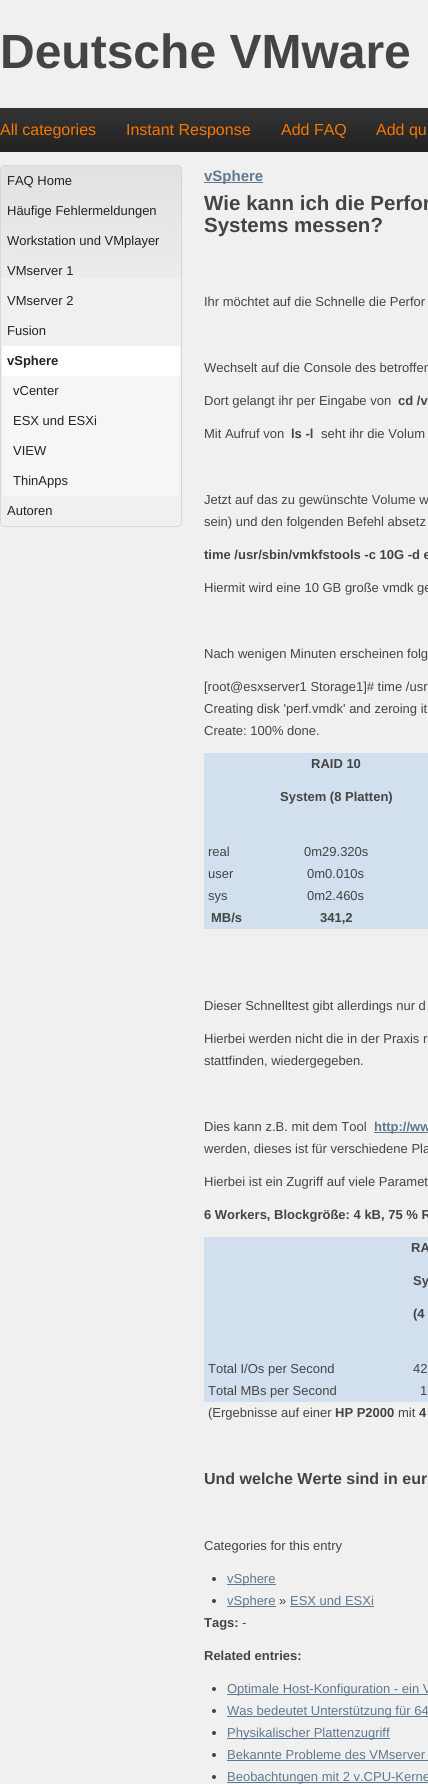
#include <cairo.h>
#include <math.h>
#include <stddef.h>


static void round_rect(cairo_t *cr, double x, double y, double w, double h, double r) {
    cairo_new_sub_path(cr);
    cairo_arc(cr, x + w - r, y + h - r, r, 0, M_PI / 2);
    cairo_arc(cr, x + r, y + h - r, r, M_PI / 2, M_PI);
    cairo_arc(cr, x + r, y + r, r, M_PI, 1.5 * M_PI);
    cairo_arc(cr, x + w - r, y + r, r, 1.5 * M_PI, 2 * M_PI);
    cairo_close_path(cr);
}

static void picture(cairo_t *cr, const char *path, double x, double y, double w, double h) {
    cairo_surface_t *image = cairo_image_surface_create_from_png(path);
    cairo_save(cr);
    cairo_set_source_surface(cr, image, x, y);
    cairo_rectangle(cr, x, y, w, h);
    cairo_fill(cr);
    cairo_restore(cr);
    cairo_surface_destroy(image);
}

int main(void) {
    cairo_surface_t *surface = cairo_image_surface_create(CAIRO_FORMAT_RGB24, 428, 1784);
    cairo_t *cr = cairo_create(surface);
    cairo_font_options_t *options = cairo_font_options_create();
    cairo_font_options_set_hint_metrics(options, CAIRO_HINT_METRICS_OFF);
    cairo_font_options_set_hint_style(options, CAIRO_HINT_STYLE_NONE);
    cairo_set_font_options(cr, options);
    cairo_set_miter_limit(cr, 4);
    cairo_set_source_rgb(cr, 0.941, 0.941, 0.941);
    cairo_paint(cr);
    cairo_select_font_face(cr, "Liberation Sans", CAIRO_FONT_SLANT_NORMAL, CAIRO_FONT_WEIGHT_BOLD);
    cairo_set_font_size(cr, 48);
    cairo_set_source_rgb(cr, 0.267, 0.267, 0.267);
    cairo_move_to(cr, 0, 68);
    cairo_show_text(cr, "Deutsche VMware");
    picture(cr, "img1.png", 0, 108, 428, 44);
    cairo_select_font_face(cr, "Liberation Sans", CAIRO_FONT_SLANT_NORMAL, CAIRO_FONT_WEIGHT_NORMAL);
    cairo_set_font_size(cr, 16);
    cairo_set_source_rgb(cr, 0.965, 0.463, 0);
    cairo_move_to(cr, 0, 135);
    cairo_show_text(cr, "All categories");
    cairo_move_to(cr, 126, 135);
    cairo_show_text(cr, "Instant Response");
    cairo_move_to(cr, 281, 135);
    cairo_show_text(cr, "Add FAQ");
    cairo_move_to(cr, 376, 135);
    cairo_show_text(cr, "Add qu");
    picture(cr, "img2.png", 0, 166, 182, 112);
    round_rect(cr, 0.5, 165.5, 181, 361, 4.5);
    cairo_set_source_rgb(cr, 0.843, 0.843, 0.843);
    cairo_set_line_width(cr, 1);
    cairo_stroke(cr);
    cairo_set_font_size(cr, 13);
    cairo_set_source_rgb(cr, 0.133, 0.133, 0.133);
    cairo_move_to(cr, 7, 185);
    cairo_show_text(cr, "FAQ Home");
    cairo_move_to(cr, 7, 215);
    cairo_show_text(cr, "Häufige Fehlermeldungen");
    cairo_move_to(cr, 7, 245);
    cairo_show_text(cr, "Workstation und VMplayer");
    cairo_move_to(cr, 7, 275);
    cairo_show_text(cr, "VMserver 1");
    cairo_move_to(cr, 7, 305);
    cairo_show_text(cr, "VMserver 2");
    cairo_move_to(cr, 7, 335);
    cairo_show_text(cr, "Fusion");
    cairo_set_source_rgb(cr, 1, 1, 1);
    cairo_rectangle(cr, 2, 346, 178, 30);
    cairo_fill(cr);
    cairo_select_font_face(cr, "Liberation Sans", CAIRO_FONT_SLANT_NORMAL, CAIRO_FONT_WEIGHT_BOLD);
    cairo_set_source_rgb(cr, 0.133, 0.133, 0.133);
    cairo_move_to(cr, 7, 365);
    cairo_show_text(cr, "vSphere");
    cairo_set_source_rgb(cr, 0.961, 0.961, 0.961);
    cairo_rectangle(cr, 3, 376, 176, 120);
    cairo_fill(cr);
    cairo_select_font_face(cr, "Liberation Sans", CAIRO_FONT_SLANT_NORMAL, CAIRO_FONT_WEIGHT_NORMAL);
    cairo_set_source_rgb(cr, 0.133, 0.133, 0.133);
    cairo_move_to(cr, 13, 395);
    cairo_show_text(cr, "vCenter");
    cairo_move_to(cr, 13, 425);
    cairo_show_text(cr, "ESX und ESXi");
    cairo_move_to(cr, 13, 455);
    cairo_show_text(cr, "VIEW");
    cairo_move_to(cr, 13, 485);
    cairo_show_text(cr, "ThinApps");
    cairo_move_to(cr, 7, 515);
    cairo_show_text(cr, "Autoren");
    cairo_set_source_rgb(cr, 0.376, 0.471, 0.565);
    cairo_rectangle(cr, 204, 182, 59, 1);
    cairo_fill(cr);
    cairo_select_font_face(cr, "Liberation Sans", CAIRO_FONT_SLANT_NORMAL, CAIRO_FONT_WEIGHT_BOLD);
    cairo_set_font_size(cr, 15);
    cairo_move_to(cr, 204, 181);
    cairo_show_text(cr, "vSphere");
    cairo_set_font_size(cr, 20.5);
    cairo_set_source_rgb(cr, 0.267, 0.267, 0.267);
    cairo_move_to(cr, 204, 210);
    cairo_show_text(cr, "Wie kann ich die Perfor");
    cairo_move_to(cr, 204, 232);
    cairo_show_text(cr, "Systems messen?");
    cairo_select_font_face(cr, "Liberation Sans", CAIRO_FONT_SLANT_NORMAL, CAIRO_FONT_WEIGHT_NORMAL);
    cairo_set_font_size(cr, 13);
    cairo_move_to(cr, 204, 306);
    cairo_show_text(cr, "Ihr möchtet auf die Schnelle die Perfor");
    cairo_move_to(cr, 204, 372);
    cairo_show_text(cr, "Wechselt auf die Console des betroffen");
    cairo_move_to(cr, 204, 405);
    cairo_show_text(cr, "Dort gelangt ihr per Eingabe von");
    cairo_select_font_face(cr, "Liberation Sans", CAIRO_FONT_SLANT_NORMAL, CAIRO_FONT_WEIGHT_BOLD);
    cairo_move_to(cr, 398, 405);
    cairo_show_text(cr, "cd /v");
    cairo_select_font_face(cr, "Liberation Sans", CAIRO_FONT_SLANT_NORMAL, CAIRO_FONT_WEIGHT_NORMAL);
    cairo_move_to(cr, 204, 438);
    cairo_show_text(cr, "Mit Aufruf von");
    cairo_select_font_face(cr, "Liberation Sans", CAIRO_FONT_SLANT_NORMAL, CAIRO_FONT_WEIGHT_BOLD);
    cairo_move_to(cr, 291, 438);
    cairo_show_text(cr, "ls -l");
    cairo_select_font_face(cr, "Liberation Sans", CAIRO_FONT_SLANT_NORMAL, CAIRO_FONT_WEIGHT_NORMAL);
    cairo_move_to(cr, 321, 438);
    cairo_show_text(cr, "seht ihr die Volum");
    cairo_move_to(cr, 204, 504);
    cairo_show_text(cr, "Jetzt auf das zu gewünschte Volume w");
    cairo_move_to(cr, 204, 526);
    cairo_show_text(cr, "sein) und den folgenden Befehl absetz");
    cairo_select_font_face(cr, "Liberation Sans", CAIRO_FONT_SLANT_NORMAL, CAIRO_FONT_WEIGHT_BOLD);
    cairo_move_to(cr, 204, 559);
    cairo_show_text(cr, "time /usr/sbin/vmkfstools -c 10G -d e");
    cairo_select_font_face(cr, "Liberation Sans", CAIRO_FONT_SLANT_NORMAL, CAIRO_FONT_WEIGHT_NORMAL);
    cairo_move_to(cr, 204, 592);
    cairo_show_text(cr, "Hiermit wird eine 10 GB große vmdk ge");
    cairo_move_to(cr, 204, 658);
    cairo_show_text(cr, "Nach wenigen Minuten erscheinen folg");
    cairo_move_to(cr, 204, 691);
    cairo_show_text(cr, "[root@esxserver1 Storage1]# time /usr");
    cairo_move_to(cr, 204, 713);
    cairo_show_text(cr, "Creating disk 'perf.vmdk' and zeroing it");
    cairo_move_to(cr, 204, 735);
    cairo_show_text(cr, "Create: 100% done.");
    cairo_set_source_rgb(cr, 0.82, 0.875, 0.937);
    cairo_rectangle(cr, 204, 753, 224, 176);
    cairo_fill(cr);
    cairo_select_font_face(cr, "Liberation Sans", CAIRO_FONT_SLANT_NORMAL, CAIRO_FONT_WEIGHT_BOLD);
    cairo_set_source_rgb(cr, 0.267, 0.267, 0.267);
    cairo_move_to(cr, 311, 768);
    cairo_show_text(cr, "RAID 10");
    cairo_move_to(cr, 280, 801);
    cairo_show_text(cr, "System (8 Platten)");
    cairo_select_font_face(cr, "Liberation Sans", CAIRO_FONT_SLANT_NORMAL, CAIRO_FONT_WEIGHT_NORMAL);
    cairo_move_to(cr, 208, 856);
    cairo_show_text(cr, "real");
    cairo_move_to(cr, 304, 856);
    cairo_show_text(cr, "0m29.320s");
    cairo_move_to(cr, 208, 878);
    cairo_show_text(cr, "user");
    cairo_move_to(cr, 307, 878);
    cairo_show_text(cr, "0m0.010s");
    cairo_move_to(cr, 208, 900);
    cairo_show_text(cr, "sys");
    cairo_move_to(cr, 307, 900);
    cairo_show_text(cr, "0m2.460s");
    cairo_select_font_face(cr, "Liberation Sans", CAIRO_FONT_SLANT_NORMAL, CAIRO_FONT_WEIGHT_BOLD);
    cairo_move_to(cr, 211, 922);
    cairo_show_text(cr, "MB/s");
    cairo_move_to(cr, 320, 922);
    cairo_show_text(cr, "341,2");
    cairo_select_font_face(cr, "Liberation Sans", CAIRO_FONT_SLANT_NORMAL, CAIRO_FONT_WEIGHT_NORMAL);
    cairo_move_to(cr, 204, 1010);
    cairo_show_text(cr, "Dieser Schnelltest gibt allerdings nur d");
    cairo_move_to(cr, 204, 1043);
    cairo_show_text(cr, "Hierbei werden nicht die in der Praxis r");
    cairo_move_to(cr, 204, 1065);
    cairo_show_text(cr, "stattfinden, wiedergegeben.");
    cairo_move_to(cr, 204, 1131);
    cairo_show_text(cr, "Dies kann z.B. mit dem Tool");
    cairo_set_source_rgb(cr, 0.376, 0.471, 0.565);
    cairo_rectangle(cr, 374, 1132, 54, 1);
    cairo_fill(cr);
    cairo_select_font_face(cr, "Liberation Sans", CAIRO_FONT_SLANT_NORMAL, CAIRO_FONT_WEIGHT_BOLD);
    cairo_move_to(cr, 374, 1131);
    cairo_show_text(cr, "http://ww");
    cairo_select_font_face(cr, "Liberation Sans", CAIRO_FONT_SLANT_NORMAL, CAIRO_FONT_WEIGHT_NORMAL);
    cairo_set_source_rgb(cr, 0.267, 0.267, 0.267);
    cairo_move_to(cr, 204, 1153);
    cairo_show_text(cr, "werden, dieses ist für verschiedene Pla");
    cairo_move_to(cr, 204, 1186);
    cairo_show_text(cr, "Hierbei ist ein Zugriff auf viele Paramet");
    cairo_select_font_face(cr, "Liberation Sans", CAIRO_FONT_SLANT_NORMAL, CAIRO_FONT_WEIGHT_BOLD);
    cairo_move_to(cr, 204, 1219);
    cairo_show_text(cr, "6 Workers, Blockgröße: 4 kB, 75 % R");
    cairo_set_source_rgb(cr, 0.82, 0.875, 0.937);
    cairo_rectangle(cr, 204, 1237, 224, 165);
    cairo_fill(cr);
    cairo_set_source_rgb(cr, 0.267, 0.267, 0.267);
    cairo_move_to(cr, 411, 1252);
    cairo_show_text(cr, "RA");
    cairo_move_to(cr, 413, 1285);
    cairo_show_text(cr, "Sy");
    cairo_move_to(cr, 413, 1318);
    cairo_show_text(cr, "(4");
    cairo_select_font_face(cr, "Liberation Sans", CAIRO_FONT_SLANT_NORMAL, CAIRO_FONT_WEIGHT_NORMAL);
    cairo_move_to(cr, 208, 1373);
    cairo_show_text(cr, "Total I/Os per Second");
    cairo_move_to(cr, 413, 1373);
    cairo_show_text(cr, "42");
    cairo_move_to(cr, 208, 1395);
    cairo_show_text(cr, "Total MBs per Second");
    cairo_move_to(cr, 420, 1395);
    cairo_show_text(cr, "1");
    cairo_move_to(cr, 208, 1417);
    cairo_show_text(cr, "(Ergebnisse auf einer");
    cairo_select_font_face(cr, "Liberation Sans", CAIRO_FONT_SLANT_NORMAL, CAIRO_FONT_WEIGHT_BOLD);
    cairo_move_to(cr, 335, 1417);
    cairo_show_text(cr, "HP P2000");
    cairo_select_font_face(cr, "Liberation Sans", CAIRO_FONT_SLANT_NORMAL, CAIRO_FONT_WEIGHT_NORMAL);
    cairo_move_to(cr, 398, 1417);
    cairo_show_text(cr, "mit");
    cairo_select_font_face(cr, "Liberation Sans", CAIRO_FONT_SLANT_NORMAL, CAIRO_FONT_WEIGHT_BOLD);
    cairo_move_to(cr, 419, 1417);
    cairo_show_text(cr, "4");
    cairo_set_font_size(cr, 16);
    cairo_move_to(cr, 204, 1484);
    cairo_show_text(cr, "Und welche Werte sind in eur");
    cairo_select_font_face(cr, "Liberation Sans", CAIRO_FONT_SLANT_NORMAL, CAIRO_FONT_WEIGHT_NORMAL);
    cairo_set_font_size(cr, 13);
    cairo_move_to(cr, 204, 1550);
    cairo_show_text(cr, "Categories for this entry");
    cairo_new_path(cr);
    cairo_arc(cr, 214, 1579, 2, 0, 2 * M_PI);
    cairo_fill(cr);
    cairo_set_source_rgb(cr, 0.376, 0.471, 0.565);
    cairo_rectangle(cr, 227, 1584, 49, 1);
    cairo_fill(cr);
    cairo_move_to(cr, 227, 1583);
    cairo_show_text(cr, "vSphere");
    cairo_set_source_rgb(cr, 0.267, 0.267, 0.267);
    cairo_new_path(cr);
    cairo_arc(cr, 214, 1601, 2, 0, 2 * M_PI);
    cairo_fill(cr);
    cairo_set_source_rgb(cr, 0.376, 0.471, 0.565);
    cairo_rectangle(cr, 227, 1606, 49, 1);
    cairo_fill(cr);
    cairo_move_to(cr, 227, 1605);
    cairo_show_text(cr, "vSphere");
    cairo_set_source_rgb(cr, 0.267, 0.267, 0.267);
    cairo_move_to(cr, 279, 1605);
    cairo_show_text(cr, "»");
    cairo_set_source_rgb(cr, 0.376, 0.471, 0.565);
    cairo_move_to(cr, 290, 1605);
    cairo_show_text(cr, "ESX und ESXi");
    cairo_rectangle(cr, 290, 1606, 84, 1);
    cairo_fill(cr);
    cairo_select_font_face(cr, "Liberation Sans", CAIRO_FONT_SLANT_NORMAL, CAIRO_FONT_WEIGHT_BOLD);
    cairo_set_source_rgb(cr, 0.267, 0.267, 0.267);
    cairo_move_to(cr, 204, 1627);
    cairo_show_text(cr, "Tags:");
    cairo_select_font_face(cr, "Liberation Sans", CAIRO_FONT_SLANT_NORMAL, CAIRO_FONT_WEIGHT_NORMAL);
    cairo_move_to(cr, 242, 1627);
    cairo_show_text(cr, "-");
    cairo_select_font_face(cr, "Liberation Sans", CAIRO_FONT_SLANT_NORMAL, CAIRO_FONT_WEIGHT_BOLD);
    cairo_move_to(cr, 204, 1660);
    cairo_show_text(cr, "Related entries:");
    cairo_new_path(cr);
    cairo_arc(cr, 214, 1689, 2, 0, 2 * M_PI);
    cairo_fill(cr);
    cairo_set_source_rgb(cr, 0.376, 0.471, 0.565);
    cairo_rectangle(cr, 227, 1694, 201, 1);
    cairo_fill(cr);
    cairo_select_font_face(cr, "Liberation Sans", CAIRO_FONT_SLANT_NORMAL, CAIRO_FONT_WEIGHT_NORMAL);
    cairo_move_to(cr, 227, 1693);
    cairo_show_text(cr, "Optimale Host-Konfiguration - ein V");
    cairo_set_source_rgb(cr, 0.267, 0.267, 0.267);
    cairo_new_path(cr);
    cairo_arc(cr, 214, 1711, 2, 0, 2 * M_PI);
    cairo_fill(cr);
    cairo_set_source_rgb(cr, 0.376, 0.471, 0.565);
    cairo_rectangle(cr, 227, 1716, 201, 1);
    cairo_fill(cr);
    cairo_move_to(cr, 227, 1715);
    cairo_show_text(cr, "Was bedeutet Unterstützung für 64");
    cairo_set_source_rgb(cr, 0.267, 0.267, 0.267);
    cairo_new_path(cr);
    cairo_arc(cr, 214, 1733, 2, 0, 2 * M_PI);
    cairo_fill(cr);
    cairo_set_source_rgb(cr, 0.376, 0.471, 0.565);
    cairo_rectangle(cr, 227, 1738, 163, 1);
    cairo_fill(cr);
    cairo_move_to(cr, 227, 1737);
    cairo_show_text(cr, "Physikalischer Plattenzugriff");
    cairo_set_source_rgb(cr, 0.267, 0.267, 0.267);
    cairo_new_path(cr);
    cairo_arc(cr, 214, 1755, 2, 0, 2 * M_PI);
    cairo_fill(cr);
    cairo_set_source_rgb(cr, 0.376, 0.471, 0.565);
    cairo_move_to(cr, 227, 1759);
    cairo_show_text(cr, "Bekannte Probleme des VMserver");
    cairo_rectangle(cr, 227, 1760, 201, 1);
    cairo_fill(cr);
    cairo_set_source_rgb(cr, 0.267, 0.267, 0.267);
    cairo_arc(cr, 214, 1777, 2, 0, 2 * M_PI);
    cairo_fill(cr);
    cairo_set_source_rgb(cr, 0.376, 0.471, 0.565);
    cairo_rectangle(cr, 227, 1782, 201, 1);
    cairo_fill(cr);
    cairo_move_to(cr, 227, 1781);
    cairo_show_text(cr, "Beobachtungen mit 2 v.CPU-Kerne");
    cairo_surface_write_to_png(surface, "page.png");
    cairo_font_options_destroy(options);
    cairo_destroy(cr);
    cairo_surface_destroy(surface);
    return 0;
}
